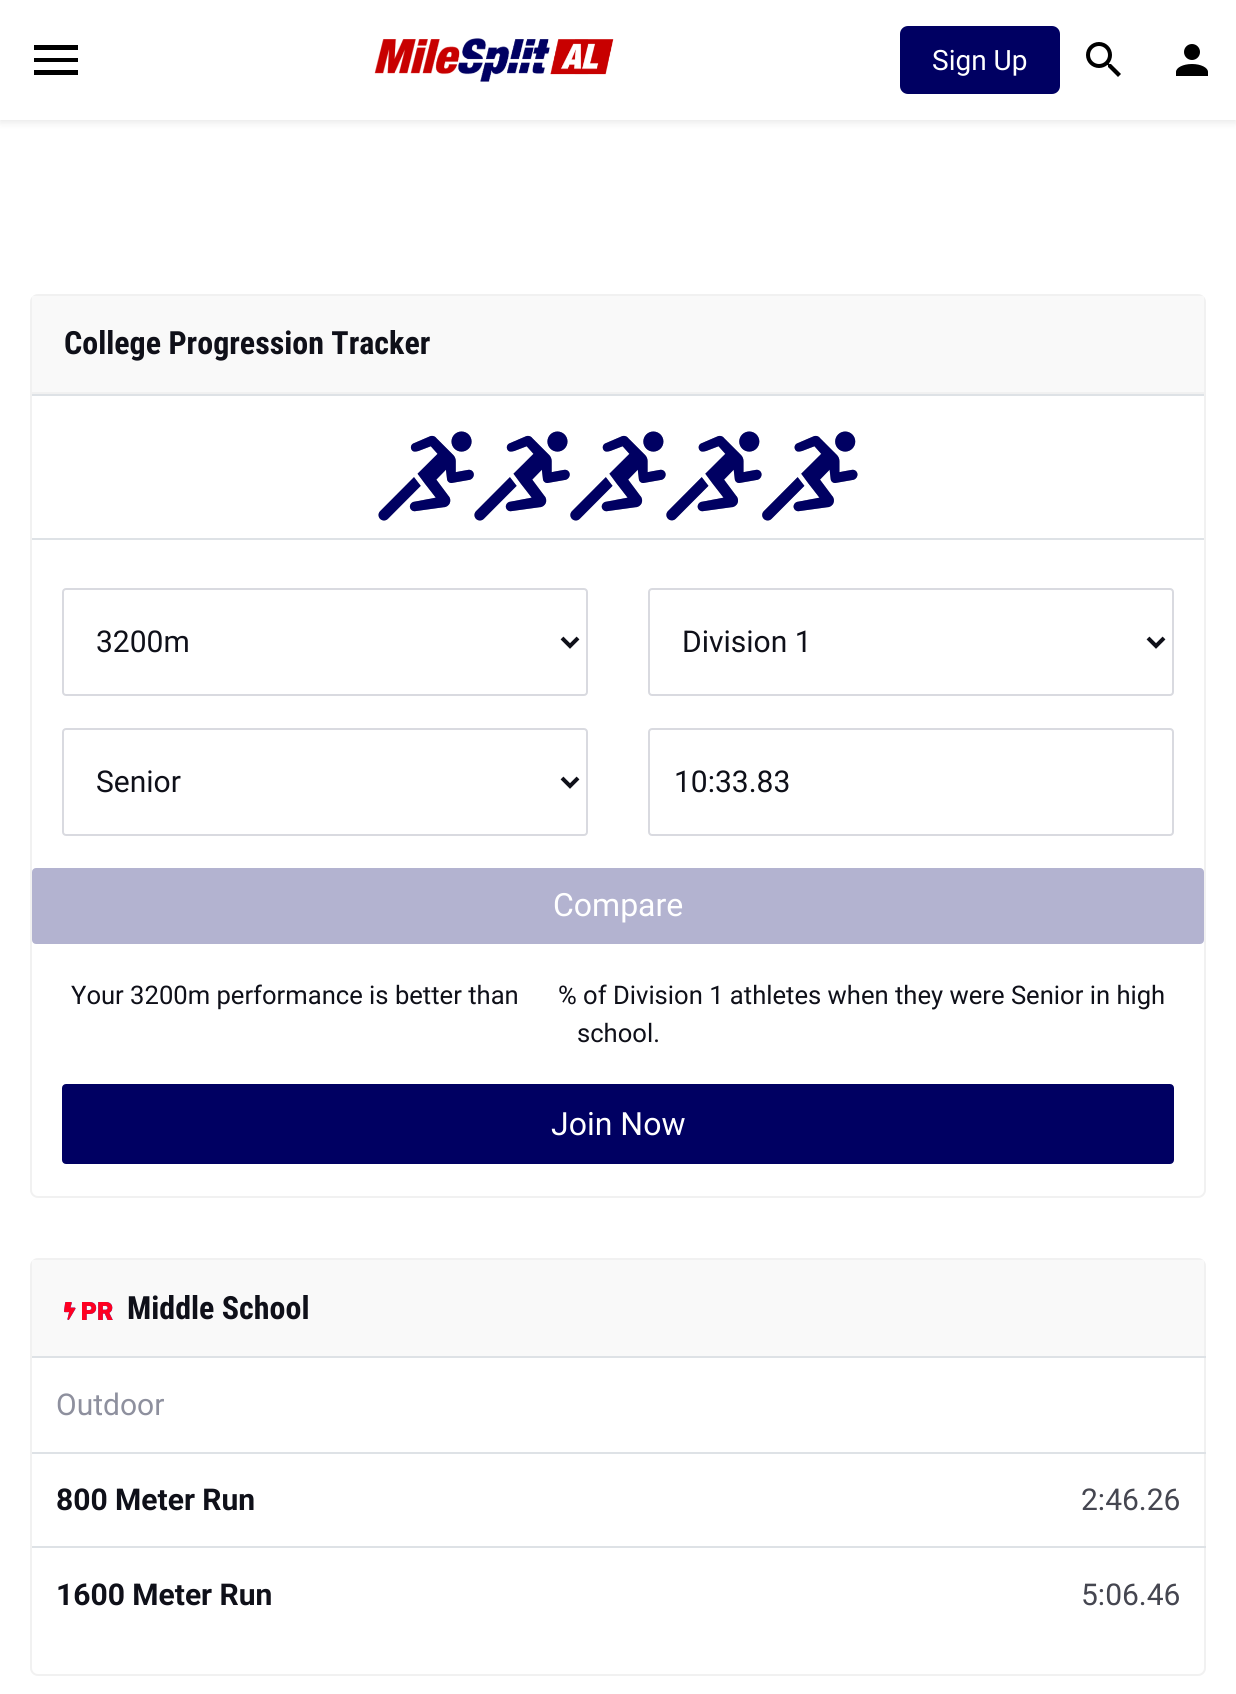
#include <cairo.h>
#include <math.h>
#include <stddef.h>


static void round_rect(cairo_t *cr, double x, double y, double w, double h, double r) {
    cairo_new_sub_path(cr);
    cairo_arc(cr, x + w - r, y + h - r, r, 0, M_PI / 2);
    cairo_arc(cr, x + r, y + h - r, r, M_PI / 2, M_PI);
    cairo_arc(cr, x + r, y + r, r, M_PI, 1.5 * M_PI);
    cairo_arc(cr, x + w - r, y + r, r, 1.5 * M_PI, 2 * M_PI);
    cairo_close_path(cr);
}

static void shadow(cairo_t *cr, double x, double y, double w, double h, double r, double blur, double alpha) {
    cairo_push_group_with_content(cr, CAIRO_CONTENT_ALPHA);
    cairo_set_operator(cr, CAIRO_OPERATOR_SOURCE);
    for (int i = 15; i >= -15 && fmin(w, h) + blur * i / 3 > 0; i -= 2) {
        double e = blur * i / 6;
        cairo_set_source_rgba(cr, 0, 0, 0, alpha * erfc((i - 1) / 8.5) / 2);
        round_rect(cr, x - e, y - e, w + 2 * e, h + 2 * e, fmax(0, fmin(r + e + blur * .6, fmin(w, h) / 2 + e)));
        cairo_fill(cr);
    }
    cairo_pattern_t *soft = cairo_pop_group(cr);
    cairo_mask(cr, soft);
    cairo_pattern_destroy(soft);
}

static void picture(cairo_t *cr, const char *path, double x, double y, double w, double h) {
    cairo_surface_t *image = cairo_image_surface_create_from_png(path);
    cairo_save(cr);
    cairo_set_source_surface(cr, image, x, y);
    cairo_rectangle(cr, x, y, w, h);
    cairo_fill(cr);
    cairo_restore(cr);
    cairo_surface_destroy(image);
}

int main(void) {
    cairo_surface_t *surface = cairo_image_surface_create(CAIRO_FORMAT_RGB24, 1236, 1694);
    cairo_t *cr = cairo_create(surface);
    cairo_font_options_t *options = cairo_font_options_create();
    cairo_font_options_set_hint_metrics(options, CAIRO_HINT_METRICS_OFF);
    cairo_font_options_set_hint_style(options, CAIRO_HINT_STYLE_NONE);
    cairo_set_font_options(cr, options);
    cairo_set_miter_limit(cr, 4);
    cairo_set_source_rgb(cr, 1, 1, 1);
    cairo_paint(cr);
    cairo_set_source_rgb(cr, 0, 0, 0);
    shadow(cr, 0, 2, 1236, 120, 0, 4, 0.1);
    cairo_set_source_rgb(cr, 1, 1, 1);
    cairo_rectangle(cr, 0, 0, 1236, 120);
    cairo_fill(cr);
    cairo_set_source_rgb(cr, 0, 0, 0);
    cairo_new_path(cr);
    cairo_move_to(cr, 34, 45);
    cairo_line_to(cr, 78, 45);
    cairo_line_to(cr, 78, 50);
    cairo_line_to(cr, 34, 50);
    cairo_line_to(cr, 34, 45);
    cairo_move_to(cr, 34, 58);
    cairo_line_to(cr, 78, 58);
    cairo_line_to(cr, 78, 62);
    cairo_line_to(cr, 34, 62);
    cairo_line_to(cr, 34, 58);
    cairo_move_to(cr, 34, 70);
    cairo_line_to(cr, 78, 70);
    cairo_line_to(cr, 78, 75);
    cairo_line_to(cr, 34, 75);
    cairo_close_path(cr);
    cairo_fill(cr);
    picture(cr, "img1.png", 374, 38, 240, 44);
    cairo_set_source_rgb(cr, 0, 0, 0.384);
    round_rect(cr, 901, 27, 158, 66, 7);
    cairo_fill_preserve(cr);
    cairo_stroke(cr);
    cairo_select_font_face(cr, "Roboto", CAIRO_FONT_SLANT_NORMAL, CAIRO_FONT_WEIGHT_NORMAL);
    cairo_set_font_size(cr, 28);
    cairo_set_source_rgb(cr, 1, 1, 1);
    cairo_move_to(cr, 932, 70);
    cairo_show_text(cr, "Sign Up");
    picture(cr, "img2.png", 1086, 42, 35, 35);
    picture(cr, "img3.png", 1176, 44, 32, 32);
    round_rect(cr, 31, 295, 1174, 902, 7);
    cairo_set_source_rgb(cr, 0.945, 0.945, 0.945);
    cairo_stroke(cr);
    cairo_set_source_rgb(cr, 0.976, 0.976, 0.976);
    cairo_rectangle(cr, 32, 296, 1172, 96);
    cairo_fill(cr);
    cairo_select_font_face(cr, "Roboto Condensed", CAIRO_FONT_SLANT_NORMAL, CAIRO_FONT_WEIGHT_BOLD);
    cairo_set_font_size(cr, 32);
    cairo_set_source_rgb(cr, 0.059, 0.063, 0.098);
    cairo_move_to(cr, 64, 354);
    cairo_show_text(cr, "College Progression Tracker");
    cairo_set_source_rgb(cr, 0.945, 0.945, 0.945);
    cairo_rectangle(cr, 32, 392, 1172, 2);
    cairo_fill(cr);
    cairo_set_source_rgb(cr, 0.871, 0.886, 0.902);
    cairo_rectangle(cr, 32, 394, 1172, 2);
    cairo_fill(cr);
    picture(cr, "img4.png", 378, 431, 480, 90);
    picture(cr, "img5.png", 378, 431, 480, 90);
    cairo_rectangle(cr, 32, 538, 1172, 2);
    cairo_fill(cr);
    round_rect(cr, 63, 589, 524, 106, 3);
    cairo_set_source_rgb(cr, 0.851, 0.855, 0.878);
    cairo_stroke(cr);
    cairo_new_path(cr);
    cairo_move_to(cr, 562, 638);
    cairo_line_to(cr, 570, 646);
    cairo_line_to(cr, 578, 638);
    cairo_set_source_rgb(cr, 0.059, 0.063, 0.098);
    cairo_set_line_width(cr, 4);
    cairo_stroke(cr);
    cairo_select_font_face(cr, "Roboto", CAIRO_FONT_SLANT_NORMAL, CAIRO_FONT_WEIGHT_NORMAL);
    cairo_set_font_size(cr, 30);
    cairo_move_to(cr, 96, 652);
    cairo_show_text(cr, "3200m");
    round_rect(cr, 649, 589, 524, 106, 3);
    cairo_set_source_rgb(cr, 0.851, 0.855, 0.878);
    cairo_set_line_width(cr, 2);
    cairo_stroke(cr);
    cairo_new_path(cr);
    cairo_move_to(cr, 1148, 638);
    cairo_line_to(cr, 1156, 646);
    cairo_line_to(cr, 1164, 638);
    cairo_set_source_rgb(cr, 0.059, 0.063, 0.098);
    cairo_set_line_width(cr, 4);
    cairo_stroke(cr);
    cairo_move_to(cr, 682, 652);
    cairo_show_text(cr, "Division 1");
    round_rect(cr, 63, 729, 524, 106, 3);
    cairo_set_source_rgb(cr, 0.851, 0.855, 0.878);
    cairo_set_line_width(cr, 2);
    cairo_stroke(cr);
    cairo_new_path(cr);
    cairo_move_to(cr, 562, 778);
    cairo_line_to(cr, 570, 786);
    cairo_line_to(cr, 578, 778);
    cairo_set_source_rgb(cr, 0.059, 0.063, 0.098);
    cairo_set_line_width(cr, 4);
    cairo_stroke(cr);
    cairo_move_to(cr, 96, 792);
    cairo_show_text(cr, "Senior");
    round_rect(cr, 649, 729, 524, 106, 3);
    cairo_set_source_rgb(cr, 0.851, 0.855, 0.878);
    cairo_set_line_width(cr, 2);
    cairo_stroke(cr);
    cairo_set_source_rgb(cr, 0.059, 0.063, 0.098);
    cairo_move_to(cr, 674, 792);
    cairo_show_text(cr, "10:33.83");
    cairo_set_source_rgb(cr, 0.702, 0.702, 0.816);
    round_rect(cr, 33, 869, 1170, 74, 3);
    cairo_fill_preserve(cr);
    cairo_stroke(cr);
    cairo_set_font_size(cr, 32);
    cairo_set_source_rgb(cr, 1, 1, 1);
    cairo_move_to(cr, 553, 916);
    cairo_show_text(cr, "Compare");
    cairo_set_font_size(cr, 25.6);
    cairo_set_source_rgb(cr, 0.059, 0.063, 0.098);
    cairo_move_to(cr, 71, 1004);
    cairo_show_text(cr, "Your 3200m performance is better than");
    cairo_move_to(cr, 558, 1004);
    cairo_show_text(cr, "% of Division 1 athletes when they were Senior in high");
    cairo_move_to(cr, 577, 1042);
    cairo_show_text(cr, "school.");
    cairo_set_source_rgb(cr, 0, 0, 0.384);
    round_rect(cr, 63, 1085, 1110, 78, 3);
    cairo_fill_preserve(cr);
    cairo_stroke(cr);
    cairo_set_font_size(cr, 32);
    cairo_set_source_rgb(cr, 1, 1, 1);
    cairo_move_to(cr, 551, 1135);
    cairo_show_text(cr, "Join Now");
    round_rect(cr, 31, 1259, 1174, 416, 7);
    cairo_set_source_rgb(cr, 0.945, 0.945, 0.945);
    cairo_stroke(cr);
    cairo_set_source_rgb(cr, 0.976, 0.976, 0.976);
    cairo_rectangle(cr, 32, 1260, 1172, 96);
    cairo_fill(cr);
    picture(cr, "img6.png", 64, 1302, 49, 18);
    cairo_select_font_face(cr, "Roboto Condensed", CAIRO_FONT_SLANT_NORMAL, CAIRO_FONT_WEIGHT_BOLD);
    cairo_set_source_rgb(cr, 0.059, 0.063, 0.098);
    cairo_move_to(cr, 127, 1319);
    cairo_show_text(cr, "Middle School");
    cairo_set_source_rgb(cr, 0.871, 0.886, 0.902);
    cairo_rectangle(cr, 32, 1356, 1174, 2);
    cairo_fill(cr);
    cairo_select_font_face(cr, "Roboto", CAIRO_FONT_SLANT_NORMAL, CAIRO_FONT_WEIGHT_NORMAL);
    cairo_set_font_size(cr, 30);
    cairo_set_source_rgb(cr, 0.557, 0.565, 0.62);
    cairo_move_to(cr, 56, 1415);
    cairo_show_text(cr, "Outdoor");
    cairo_select_font_face(cr, "Roboto", CAIRO_FONT_SLANT_NORMAL, CAIRO_FONT_WEIGHT_BOLD);
    cairo_set_source_rgb(cr, 0.059, 0.063, 0.098);
    cairo_move_to(cr, 56, 1510);
    cairo_show_text(cr, "800 Meter Run");
    cairo_set_source_rgb(cr, 0.871, 0.886, 0.902);
    cairo_rectangle(cr, 32, 1452, 1174, 2);
    cairo_fill(cr);
    cairo_select_font_face(cr, "Roboto", CAIRO_FONT_SLANT_NORMAL, CAIRO_FONT_WEIGHT_NORMAL);
    cairo_set_source_rgb(cr, 0.271, 0.275, 0.314);
    cairo_move_to(cr, 1081, 1510);
    cairo_show_text(cr, "2:46.26");
    cairo_select_font_face(cr, "Roboto", CAIRO_FONT_SLANT_NORMAL, CAIRO_FONT_WEIGHT_BOLD);
    cairo_set_source_rgb(cr, 0.059, 0.063, 0.098);
    cairo_move_to(cr, 56, 1605);
    cairo_show_text(cr, "1600 Meter Run");
    cairo_set_source_rgb(cr, 0.871, 0.886, 0.902);
    cairo_rectangle(cr, 32, 1546, 1174, 2);
    cairo_fill(cr);
    cairo_select_font_face(cr, "Roboto", CAIRO_FONT_SLANT_NORMAL, CAIRO_FONT_WEIGHT_NORMAL);
    cairo_set_source_rgb(cr, 0.271, 0.275, 0.314);
    cairo_move_to(cr, 1081, 1605);
    cairo_show_text(cr, "5:06.46");
    cairo_surface_write_to_png(surface, "page.png");
    cairo_font_options_destroy(options);
    cairo_destroy(cr);
    cairo_surface_destroy(surface);
    return 0;
}
